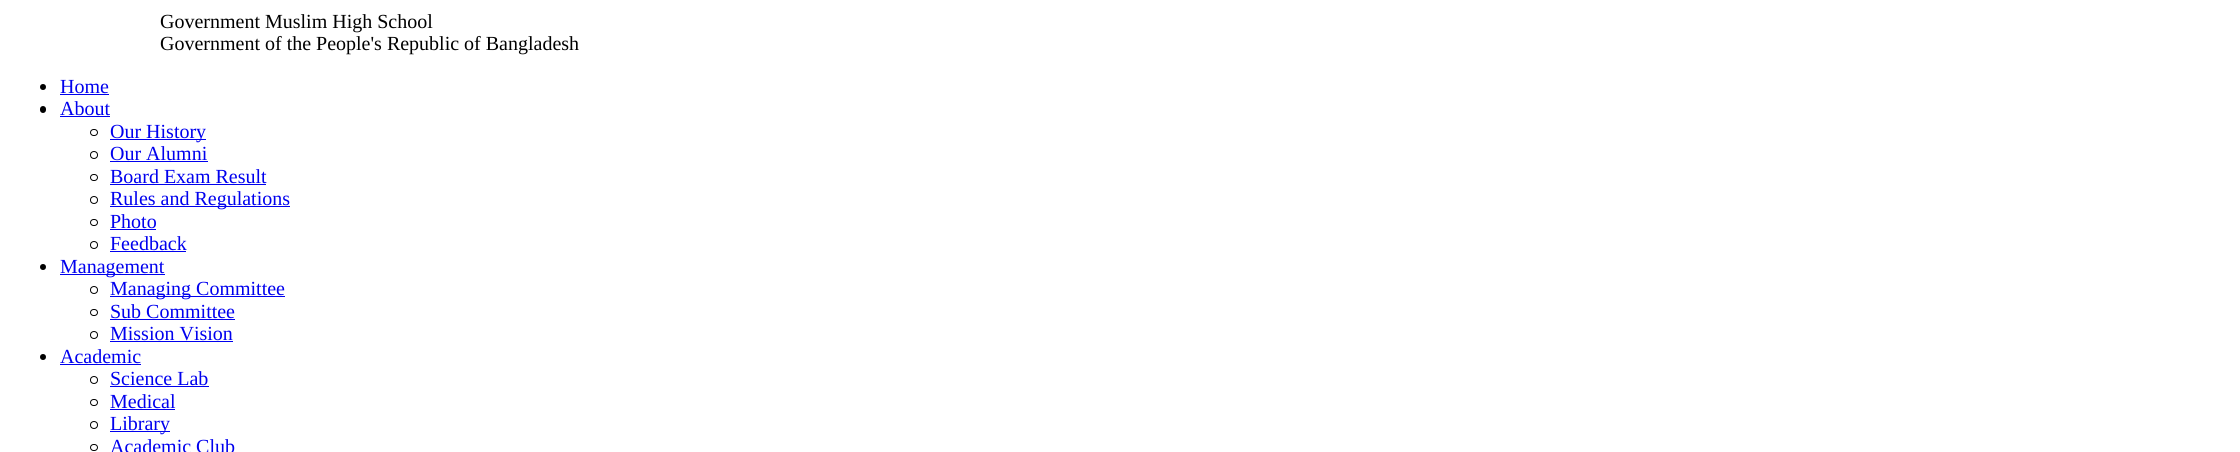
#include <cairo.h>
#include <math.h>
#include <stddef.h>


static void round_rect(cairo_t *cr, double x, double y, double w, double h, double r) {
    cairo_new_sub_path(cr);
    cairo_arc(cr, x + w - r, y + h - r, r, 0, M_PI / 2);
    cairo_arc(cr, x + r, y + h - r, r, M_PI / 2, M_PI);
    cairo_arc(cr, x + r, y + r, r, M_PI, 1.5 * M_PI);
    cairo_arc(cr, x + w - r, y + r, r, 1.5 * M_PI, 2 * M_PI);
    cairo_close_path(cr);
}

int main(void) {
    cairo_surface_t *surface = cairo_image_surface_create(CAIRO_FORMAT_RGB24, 2240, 452);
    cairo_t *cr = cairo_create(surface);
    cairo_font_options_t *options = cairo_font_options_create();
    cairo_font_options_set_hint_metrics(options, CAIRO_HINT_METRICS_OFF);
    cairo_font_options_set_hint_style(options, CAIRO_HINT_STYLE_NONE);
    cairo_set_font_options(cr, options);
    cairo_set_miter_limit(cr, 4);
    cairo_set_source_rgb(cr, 1, 1, 1);
    cairo_paint(cr);
    cairo_select_font_face(cr, "Liberation Serif", CAIRO_FONT_SLANT_NORMAL, CAIRO_FONT_WEIGHT_NORMAL);
    cairo_set_font_size(cr, 20);
    cairo_set_source_rgb(cr, 0, 0, 0);
    cairo_move_to(cr, 160, 28);
    cairo_show_text(cr, "Government Muslim High School");
    cairo_move_to(cr, 160, 50);
    cairo_show_text(cr, "Government of the People's Republic of Bangladesh");
    cairo_new_path(cr);
    cairo_arc(cr, 43, 87, 3, 0, 2 * M_PI);
    cairo_fill(cr);
    cairo_set_source_rgb(cr, 0, 0, 0.933);
    cairo_move_to(cr, 60, 93);
    cairo_show_text(cr, "Home");
    cairo_rectangle(cr, 60, 94, 49, 1);
    cairo_fill(cr);
    cairo_set_source_rgb(cr, 0, 0, 0);
    round_rect(cr, 40, 106, 6, 7, 3);
    cairo_fill(cr);
    cairo_set_source_rgb(cr, 0, 0, 0.933);
    cairo_move_to(cr, 60, 115);
    cairo_show_text(cr, "About");
    cairo_rectangle(cr, 60, 116, 50, 1);
    cairo_fill(cr);
    round_rect(cr, 90.5, 129.5, 7, 6, 3);
    cairo_set_source_rgb(cr, 0, 0, 0);
    cairo_set_line_width(cr, 1);
    cairo_stroke(cr);
    cairo_set_source_rgb(cr, 0, 0, 0.933);
    cairo_rectangle(cr, 110, 139, 96, 1);
    cairo_fill(cr);
    cairo_move_to(cr, 110, 138);
    cairo_show_text(cr, "Our History");
    cairo_new_path(cr);
    cairo_arc(cr, 94, 155, 3.5, 0, 2 * M_PI);
    cairo_set_source_rgb(cr, 0, 0, 0);
    cairo_stroke(cr);
    cairo_set_source_rgb(cr, 0, 0, 0.933);
    cairo_move_to(cr, 110, 160);
    cairo_show_text(cr, "Our Alumni");
    cairo_rectangle(cr, 110, 161, 98, 1);
    cairo_fill(cr);
    round_rect(cr, 90.5, 174.5, 7, 6, 3);
    cairo_set_source_rgb(cr, 0, 0, 0);
    cairo_stroke(cr);
    cairo_set_source_rgb(cr, 0, 0, 0.933);
    cairo_move_to(cr, 110, 183);
    cairo_show_text(cr, "Board Exam Result");
    cairo_rectangle(cr, 110, 184, 156, 1);
    cairo_fill(cr);
    cairo_arc(cr, 94, 200, 3.5, 0, 2 * M_PI);
    cairo_set_source_rgb(cr, 0, 0, 0);
    cairo_stroke(cr);
    cairo_set_source_rgb(cr, 0, 0, 0.933);
    cairo_rectangle(cr, 110, 206, 180, 1);
    cairo_fill(cr);
    cairo_move_to(cr, 110, 205);
    cairo_show_text(cr, "Rules and Regulations");
    round_rect(cr, 90.5, 219.5, 7, 6, 3);
    cairo_set_source_rgb(cr, 0, 0, 0);
    cairo_stroke(cr);
    cairo_set_source_rgb(cr, 0, 0, 0.933);
    cairo_move_to(cr, 110, 228);
    cairo_show_text(cr, "Photo");
    cairo_rectangle(cr, 110, 229, 46, 1);
    cairo_fill(cr);
    cairo_arc(cr, 94, 245, 3.5, 0, 2 * M_PI);
    cairo_set_source_rgb(cr, 0, 0, 0);
    cairo_stroke(cr);
    cairo_set_source_rgb(cr, 0, 0, 0.933);
    cairo_move_to(cr, 110, 250);
    cairo_show_text(cr, "Feedback");
    cairo_rectangle(cr, 110, 251, 76, 1);
    cairo_fill(cr);
    cairo_set_source_rgb(cr, 0, 0, 0);
    cairo_arc(cr, 43, 267, 3, 0, 2 * M_PI);
    cairo_fill(cr);
    cairo_set_source_rgb(cr, 0, 0, 0.933);
    cairo_rectangle(cr, 60, 274, 105, 1);
    cairo_fill(cr);
    cairo_move_to(cr, 60, 273);
    cairo_show_text(cr, "Management");
    cairo_new_path(cr);
    cairo_arc(cr, 94, 290, 3.5, 0, 2 * M_PI);
    cairo_set_source_rgb(cr, 0, 0, 0);
    cairo_stroke(cr);
    cairo_set_source_rgb(cr, 0, 0, 0.933);
    cairo_rectangle(cr, 110, 296, 175, 1);
    cairo_fill(cr);
    cairo_move_to(cr, 110, 295);
    cairo_show_text(cr, "Managing Committee");
    round_rect(cr, 90.5, 309.5, 7, 6, 3);
    cairo_set_source_rgb(cr, 0, 0, 0);
    cairo_stroke(cr);
    cairo_set_source_rgb(cr, 0, 0, 0.933);
    cairo_move_to(cr, 110, 318);
    cairo_show_text(cr, "Sub Committee");
    cairo_rectangle(cr, 110, 319, 125, 1);
    cairo_fill(cr);
    cairo_arc(cr, 94, 335, 3.5, 0, 2 * M_PI);
    cairo_set_source_rgb(cr, 0, 0, 0);
    cairo_stroke(cr);
    cairo_set_source_rgb(cr, 0, 0, 0.933);
    cairo_move_to(cr, 110, 340);
    cairo_show_text(cr, "Mission Vision");
    cairo_rectangle(cr, 110, 341, 123, 1);
    cairo_fill(cr);
    cairo_set_source_rgb(cr, 0, 0, 0);
    cairo_arc(cr, 43, 357, 3, 0, 2 * M_PI);
    cairo_fill(cr);
    cairo_set_source_rgb(cr, 0, 0, 0.933);
    cairo_move_to(cr, 60, 363);
    cairo_show_text(cr, "Academic");
    cairo_rectangle(cr, 60, 364, 81, 1);
    cairo_fill(cr);
    cairo_arc(cr, 94, 380, 3.5, 0, 2 * M_PI);
    cairo_set_source_rgb(cr, 0, 0, 0);
    cairo_stroke(cr);
    cairo_set_source_rgb(cr, 0, 0, 0.933);
    cairo_move_to(cr, 110, 385);
    cairo_show_text(cr, "Science Lab");
    cairo_rectangle(cr, 110, 386, 99, 1);
    cairo_fill(cr);
    round_rect(cr, 90.5, 399.5, 7, 6, 3);
    cairo_set_source_rgb(cr, 0, 0, 0);
    cairo_stroke(cr);
    cairo_set_source_rgb(cr, 0, 0, 0.933);
    cairo_move_to(cr, 110, 408);
    cairo_show_text(cr, "Medical");
    cairo_rectangle(cr, 110, 409, 65, 1);
    cairo_fill(cr);
    cairo_arc(cr, 94, 425, 3.5, 0, 2 * M_PI);
    cairo_set_source_rgb(cr, 0, 0, 0);
    cairo_stroke(cr);
    cairo_set_source_rgb(cr, 0, 0, 0.933);
    cairo_rectangle(cr, 110, 431, 60, 1);
    cairo_fill(cr);
    cairo_move_to(cr, 110, 430);
    cairo_show_text(cr, "Library");
    round_rect(cr, 90.5, 444.5, 7, 6, 3);
    cairo_set_source_rgb(cr, 0, 0, 0);
    cairo_stroke(cr);
    cairo_set_source_rgb(cr, 0, 0, 0.933);
    cairo_move_to(cr, 110, 453);
    cairo_show_text(cr, "Academic Club");
    cairo_surface_write_to_png(surface, "page.png");
    cairo_font_options_destroy(options);
    cairo_destroy(cr);
    cairo_surface_destroy(surface);
    return 0;
}
